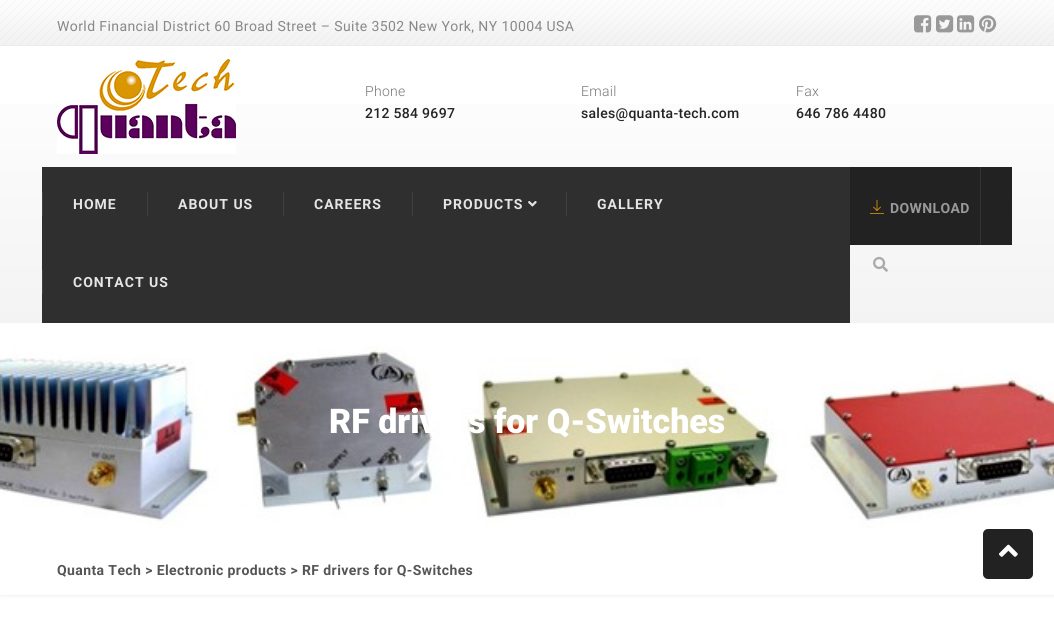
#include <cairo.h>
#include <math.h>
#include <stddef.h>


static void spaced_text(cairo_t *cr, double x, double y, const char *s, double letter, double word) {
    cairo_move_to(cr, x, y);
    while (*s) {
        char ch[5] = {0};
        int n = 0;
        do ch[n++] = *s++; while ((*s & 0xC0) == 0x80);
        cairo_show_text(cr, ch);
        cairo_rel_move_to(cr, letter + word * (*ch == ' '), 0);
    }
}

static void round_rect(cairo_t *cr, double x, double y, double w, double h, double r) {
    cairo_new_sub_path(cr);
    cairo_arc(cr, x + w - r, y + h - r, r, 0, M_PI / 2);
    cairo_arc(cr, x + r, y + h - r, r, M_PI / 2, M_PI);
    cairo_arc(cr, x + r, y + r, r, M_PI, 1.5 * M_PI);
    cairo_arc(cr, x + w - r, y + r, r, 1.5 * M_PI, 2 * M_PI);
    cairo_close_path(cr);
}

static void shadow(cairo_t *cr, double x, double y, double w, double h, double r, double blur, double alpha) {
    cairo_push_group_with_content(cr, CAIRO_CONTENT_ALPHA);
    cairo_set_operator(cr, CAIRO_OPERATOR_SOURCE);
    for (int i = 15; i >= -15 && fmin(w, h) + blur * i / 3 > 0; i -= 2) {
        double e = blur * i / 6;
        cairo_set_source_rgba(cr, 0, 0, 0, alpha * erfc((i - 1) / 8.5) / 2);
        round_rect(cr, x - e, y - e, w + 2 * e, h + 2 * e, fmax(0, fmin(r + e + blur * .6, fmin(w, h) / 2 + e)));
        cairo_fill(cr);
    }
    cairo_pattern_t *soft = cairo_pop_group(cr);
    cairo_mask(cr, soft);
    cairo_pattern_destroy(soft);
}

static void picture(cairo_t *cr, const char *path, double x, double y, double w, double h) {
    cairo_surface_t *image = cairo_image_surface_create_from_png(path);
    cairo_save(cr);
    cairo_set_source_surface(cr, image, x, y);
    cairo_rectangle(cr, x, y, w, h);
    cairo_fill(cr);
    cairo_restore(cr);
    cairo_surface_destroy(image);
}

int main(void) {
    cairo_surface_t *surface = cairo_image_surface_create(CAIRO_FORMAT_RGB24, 1054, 643);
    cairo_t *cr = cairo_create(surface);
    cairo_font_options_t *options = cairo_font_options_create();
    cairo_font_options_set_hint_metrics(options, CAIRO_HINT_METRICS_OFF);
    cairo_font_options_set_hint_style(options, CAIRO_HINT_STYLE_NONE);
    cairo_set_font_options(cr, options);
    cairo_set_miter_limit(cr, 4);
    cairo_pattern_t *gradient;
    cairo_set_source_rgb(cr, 1, 1, 1);
    cairo_paint(cr);
    picture(cr, "img1.png", 0, 0, 1054, 46);
    cairo_select_font_face(cr, "Roboto", CAIRO_FONT_SLANT_NORMAL, CAIRO_FONT_WEIGHT_NORMAL);
    cairo_set_font_size(cr, 14);
    cairo_set_source_rgb(cr, 0.533, 0.533, 0.533);
    spaced_text(cr, 57, 31, "World Financial District 60 Broad Street – Suite 3502 New York, NY 10004 USA", 0.4, 0);
    picture(cr, "img2.png", 914, 15, 18, 18);
    picture(cr, "img3.png", 936, 15, 18, 18);
    picture(cr, "img4.png", 957, 15, 18, 18);
    picture(cr, "img5.png", 979, 15, 18, 18);
    gradient = cairo_pattern_create_linear(527, 323, 527, 46);
    cairo_pattern_add_color_stop_rgba(gradient, 0, 0.953, 0.953, 0.953, 1);
    cairo_pattern_add_color_stop_rgba(gradient, 1, 1, 1, 1, 1);
    cairo_set_source(cr, gradient);
    cairo_pattern_destroy(gradient);
    cairo_rectangle(cr, 0, 104, 1054, 219);
    cairo_fill(cr);
    picture(cr, "img6.png", 57, 59, 179, 95);
    cairo_select_font_face(cr, "Roboto Light", CAIRO_FONT_SLANT_NORMAL, CAIRO_FONT_WEIGHT_NORMAL);
    cairo_set_source_rgb(cr, 0.467, 0.467, 0.467);
    spaced_text(cr, 365, 96, "Phone", 0.3, 0);
    cairo_select_font_face(cr, "Roboto Medium", CAIRO_FONT_SLANT_NORMAL, CAIRO_FONT_WEIGHT_NORMAL);
    cairo_set_source_rgb(cr, 0.137, 0.137, 0.137);
    spaced_text(cr, 365, 118, "212 584 9697", 0.3, 0);
    cairo_select_font_face(cr, "Roboto Light", CAIRO_FONT_SLANT_NORMAL, CAIRO_FONT_WEIGHT_NORMAL);
    cairo_set_source_rgb(cr, 0.467, 0.467, 0.467);
    spaced_text(cr, 581, 96, "Email", 0.3, 0);
    cairo_select_font_face(cr, "Roboto Medium", CAIRO_FONT_SLANT_NORMAL, CAIRO_FONT_WEIGHT_NORMAL);
    cairo_set_source_rgb(cr, 0.137, 0.137, 0.137);
    spaced_text(cr, 581, 118, "sales@quanta-tech.com", 0.3, 0);
    cairo_select_font_face(cr, "Roboto Light", CAIRO_FONT_SLANT_NORMAL, CAIRO_FONT_WEIGHT_NORMAL);
    cairo_set_source_rgb(cr, 0.467, 0.467, 0.467);
    spaced_text(cr, 796, 96, "Fax", 0.3, 0);
    cairo_select_font_face(cr, "Roboto Medium", CAIRO_FONT_SLANT_NORMAL, CAIRO_FONT_WEIGHT_NORMAL);
    cairo_set_source_rgb(cr, 0.137, 0.137, 0.137);
    spaced_text(cr, 796, 118, "646 786 4480", 0.3, 0);
    cairo_set_source_rgb(cr, 0.184, 0.184, 0.184);
    cairo_rectangle(cr, 42, 167, 808, 156);
    cairo_fill(cr);
    cairo_set_source_rgb(cr, 0.251, 0.251, 0.251);
    cairo_rectangle(cr, 42, 192, 1, 24);
    cairo_fill(cr);
    cairo_select_font_face(cr, "Roboto", CAIRO_FONT_SLANT_NORMAL, CAIRO_FONT_WEIGHT_BOLD);
    cairo_set_source_rgb(cr, 0.898, 0.898, 0.898);
    spaced_text(cr, 73, 209, "HOME", 1, 0);
    cairo_set_source_rgb(cr, 0.251, 0.251, 0.251);
    cairo_rectangle(cr, 147, 192, 1, 24);
    cairo_fill(cr);
    cairo_set_source_rgb(cr, 0.898, 0.898, 0.898);
    spaced_text(cr, 178, 209, "ABOUT US", 1, 0);
    cairo_set_source_rgb(cr, 0.251, 0.251, 0.251);
    cairo_rectangle(cr, 283, 192, 1, 24);
    cairo_fill(cr);
    cairo_set_source_rgb(cr, 0.898, 0.898, 0.898);
    spaced_text(cr, 314, 209, "CAREERS", 1, 0);
    cairo_set_source_rgb(cr, 0.251, 0.251, 0.251);
    cairo_rectangle(cr, 412, 192, 1, 24);
    cairo_fill(cr);
    cairo_set_source_rgb(cr, 0.898, 0.898, 0.898);
    spaced_text(cr, 443, 209, "PRODUCTS", 1, 0);
    picture(cr, "img7.png", 528, 201, 9, 6);
    cairo_set_source_rgb(cr, 0.251, 0.251, 0.251);
    cairo_rectangle(cr, 566, 192, 1, 24);
    cairo_fill(cr);
    cairo_set_source_rgb(cr, 0.898, 0.898, 0.898);
    spaced_text(cr, 597, 209, "GALLERY", 1, 0);
    cairo_set_source_rgb(cr, 0.251, 0.251, 0.251);
    cairo_rectangle(cr, 42, 270, 1, 24);
    cairo_fill(cr);
    cairo_set_source_rgb(cr, 0.898, 0.898, 0.898);
    spaced_text(cr, 73, 287, "CONTACT US", 1, 0);
    cairo_set_source_rgb(cr, 0.133, 0.133, 0.133);
    cairo_rectangle(cr, 850, 167, 162, 78);
    cairo_fill(cr);
    cairo_set_source_rgb(cr, 0.204, 0.204, 0.204);
    cairo_rectangle(cr, 980, 167, 1, 78);
    cairo_fill(cr);
    picture(cr, "img8.png", 870, 199, 14, 15);
    cairo_set_source_rgb(cr, 0.6, 0.6, 0.6);
    spaced_text(cr, 890, 213, "DOWNLOAD", 0.4, 0);
    picture(cr, "img9.png", 873, 256, 15, 16);
    cairo_save(cr);
    cairo_rectangle(cr, 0, 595, 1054, 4);
    cairo_clip(cr);
    cairo_set_source_rgb(cr, 0.933, 0.933, 0.933);
    shadow(cr, 1, 546, 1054, 50, 0, 1.5, 1);
    cairo_restore(cr);
    cairo_set_source_rgb(cr, 1, 1, 1);
    cairo_rectangle(cr, 4, 544, 1048, 1);
    cairo_fill(cr);
    picture(cr, "img10.png", 0, 346, 1054, 182);
    cairo_select_font_face(cr, "Roboto Black", CAIRO_FONT_SLANT_NORMAL, CAIRO_FONT_WEIGHT_NORMAL);
    cairo_set_font_size(cr, 34);
    cairo_move_to(cr, 329, 433);
    cairo_show_text(cr, "RF driv");
    cairo_move_to(cr, 468, 433);
    cairo_show_text(cr, "s for Q-Switches");
    cairo_select_font_face(cr, "Roboto", CAIRO_FONT_SLANT_NORMAL, CAIRO_FONT_WEIGHT_BOLD);
    cairo_set_font_size(cr, 14);
    cairo_set_source_rgb(cr, 0.333, 0.333, 0.333);
    spaced_text(cr, 57, 575, "Quanta Tech > Electronic products > RF drivers for Q-Switches", 0.4, 0);
    cairo_set_source_rgb(cr, 0.133, 0.133, 0.133);
    round_rect(cr, 983, 529, 50, 50, 5);
    cairo_fill(cr);
    picture(cr, "img11.png", 999, 544, 19, 13);
    cairo_surface_write_to_png(surface, "page.png");
    cairo_font_options_destroy(options);
    cairo_destroy(cr);
    cairo_surface_destroy(surface);
    return 0;
}
